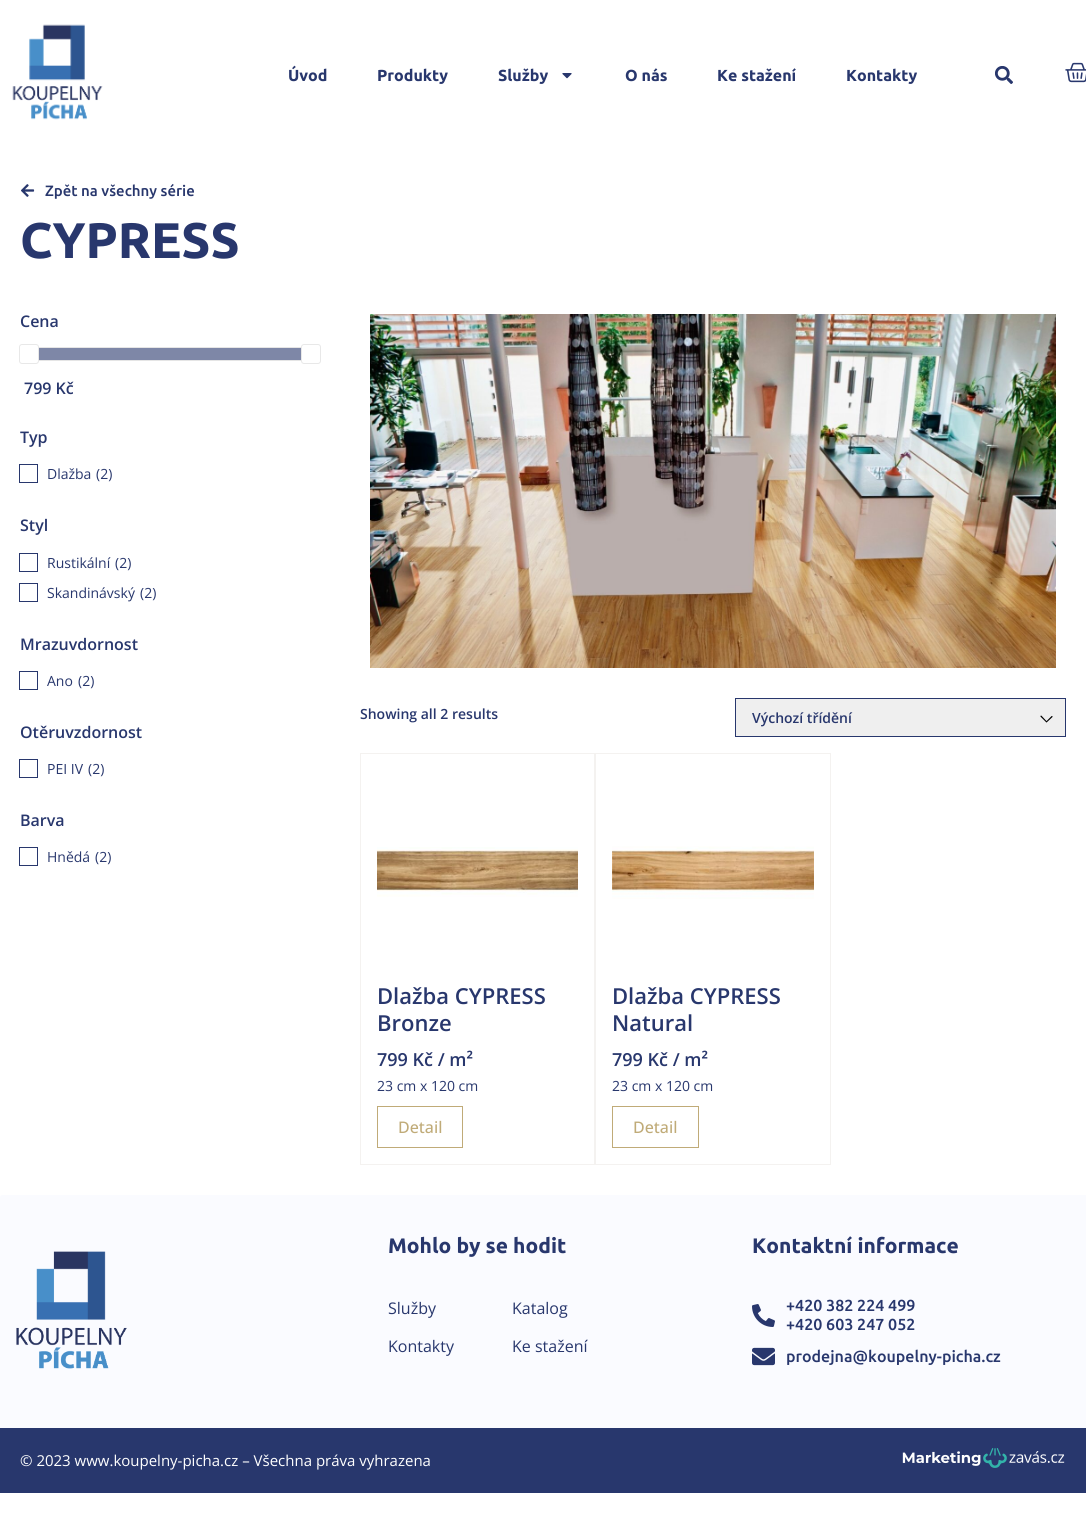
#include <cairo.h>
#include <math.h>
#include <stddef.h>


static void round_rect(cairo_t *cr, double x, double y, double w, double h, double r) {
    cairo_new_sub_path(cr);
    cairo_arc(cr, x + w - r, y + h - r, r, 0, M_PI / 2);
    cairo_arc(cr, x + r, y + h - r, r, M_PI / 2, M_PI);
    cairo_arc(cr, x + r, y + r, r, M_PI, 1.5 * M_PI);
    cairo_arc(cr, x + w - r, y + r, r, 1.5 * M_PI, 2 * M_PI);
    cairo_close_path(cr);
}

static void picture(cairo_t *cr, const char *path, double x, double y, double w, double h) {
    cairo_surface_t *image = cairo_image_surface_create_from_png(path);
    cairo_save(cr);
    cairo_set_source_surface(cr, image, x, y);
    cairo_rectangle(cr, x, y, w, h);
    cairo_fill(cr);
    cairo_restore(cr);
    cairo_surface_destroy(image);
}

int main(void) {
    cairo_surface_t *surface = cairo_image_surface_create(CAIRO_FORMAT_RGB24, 1086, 1530);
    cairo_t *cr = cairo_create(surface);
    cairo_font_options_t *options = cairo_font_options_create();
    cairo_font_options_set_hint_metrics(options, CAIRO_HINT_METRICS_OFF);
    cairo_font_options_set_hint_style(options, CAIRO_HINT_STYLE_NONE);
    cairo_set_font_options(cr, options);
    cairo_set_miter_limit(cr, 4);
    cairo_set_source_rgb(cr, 1, 1, 1);
    cairo_paint(cr);
    picture(cr, "img1.png", 12, 24, 91, 96);
    cairo_select_font_face(cr, "Ubuntu", CAIRO_FONT_SLANT_NORMAL, CAIRO_FONT_WEIGHT_BOLD);
    cairo_set_font_size(cr, 16);
    cairo_set_source_rgb(cr, 0.157, 0.216, 0.427);
    cairo_move_to(cr, 288, 81);
    cairo_show_text(cr, "Úvod");
    cairo_move_to(cr, 377, 81);
    cairo_show_text(cr, "Produkty");
    cairo_move_to(cr, 498, 81);
    cairo_show_text(cr, "Služby");
    picture(cr, "img2.png", 562, 73, 10, 6);
    cairo_move_to(cr, 625, 81);
    cairo_show_text(cr, "O nás");
    cairo_move_to(cr, 717, 81);
    cairo_show_text(cr, "Ke stažení");
    cairo_move_to(cr, 846, 81);
    cairo_show_text(cr, "Kontakty");
    picture(cr, "img3.png", 995, 66, 18, 18);
    picture(cr, "img4.png", 1065, 62, 21, 21);
    picture(cr, "img5.png", 21, 184, 14, 13);
    cairo_select_font_face(cr, "Ubuntu Medium", CAIRO_FONT_SLANT_NORMAL, CAIRO_FONT_WEIGHT_NORMAL);
    cairo_set_font_size(cr, 15);
    cairo_move_to(cr, 45, 196);
    cairo_show_text(cr, "Zpět na všechny série");
    cairo_select_font_face(cr, "Ubuntu", CAIRO_FONT_SLANT_NORMAL, CAIRO_FONT_WEIGHT_BOLD);
    cairo_set_font_size(cr, 50);
    cairo_move_to(cr, 20, 258);
    cairo_show_text(cr, "CYPRESS");
    cairo_select_font_face(cr, "Open Sans SemiBold", CAIRO_FONT_SLANT_NORMAL, CAIRO_FONT_WEIGHT_NORMAL);
    cairo_set_font_size(cr, 16);
    cairo_move_to(cr, 20, 327);
    cairo_show_text(cr, "Cena");
    cairo_rectangle(cr, 20.5, 347.5, 299, 13);
    cairo_set_source_rgb(cr, 0.898, 0.898, 0.898);
    cairo_set_line_width(cr, 1);
    cairo_stroke(cr);
    cairo_set_source_rgb(cr, 1, 1, 1);
    round_rect(cr, 19.5, 344.5, 19, 19, 2.5);
    cairo_fill_preserve(cr);
    cairo_set_source_rgb(cr, 0.91, 0.91, 0.91);
    cairo_stroke(cr);
    cairo_set_source_rgb(cr, 0.494, 0.529, 0.655);
    cairo_rectangle(cr, 39, 348, 262, 12);
    cairo_fill(cr);
    cairo_set_source_rgb(cr, 1, 1, 1);
    round_rect(cr, 301.5, 344.5, 19, 19, 2.5);
    cairo_fill_preserve(cr);
    cairo_set_source_rgb(cr, 0.91, 0.91, 0.91);
    cairo_stroke(cr);
    cairo_set_source_rgb(cr, 0.157, 0.216, 0.427);
    cairo_move_to(cr, 24, 394);
    cairo_show_text(cr, "799 Kč");
    cairo_move_to(cr, 20, 443);
    cairo_show_text(cr, "Typ");
    cairo_rectangle(cr, 19.5, 464.5, 18, 18);
    cairo_stroke(cr);
    cairo_select_font_face(cr, "Open Sans", CAIRO_FONT_SLANT_NORMAL, CAIRO_FONT_WEIGHT_NORMAL);
    cairo_set_font_size(cr, 14);
    cairo_move_to(cr, 47, 479);
    cairo_show_text(cr, "Dlažba");
    cairo_move_to(cr, 96, 479);
    cairo_show_text(cr, "(2)");
    cairo_select_font_face(cr, "Open Sans SemiBold", CAIRO_FONT_SLANT_NORMAL, CAIRO_FONT_WEIGHT_NORMAL);
    cairo_set_font_size(cr, 16);
    cairo_move_to(cr, 20, 531);
    cairo_show_text(cr, "Styl");
    cairo_rectangle(cr, 19.5, 553.5, 18, 18);
    cairo_stroke(cr);
    cairo_select_font_face(cr, "Open Sans", CAIRO_FONT_SLANT_NORMAL, CAIRO_FONT_WEIGHT_NORMAL);
    cairo_set_font_size(cr, 14);
    cairo_move_to(cr, 47, 568);
    cairo_show_text(cr, "Rustikální");
    cairo_move_to(cr, 115, 568);
    cairo_show_text(cr, "(2)");
    cairo_rectangle(cr, 19.5, 583.5, 18, 18);
    cairo_stroke(cr);
    cairo_move_to(cr, 47, 598);
    cairo_show_text(cr, "Skandinávský");
    cairo_move_to(cr, 140, 598);
    cairo_show_text(cr, "(2)");
    cairo_select_font_face(cr, "Open Sans SemiBold", CAIRO_FONT_SLANT_NORMAL, CAIRO_FONT_WEIGHT_NORMAL);
    cairo_set_font_size(cr, 16);
    cairo_move_to(cr, 20, 650);
    cairo_show_text(cr, "Mrazuvdornost");
    cairo_rectangle(cr, 19.5, 671.5, 18, 18);
    cairo_stroke(cr);
    cairo_select_font_face(cr, "Open Sans", CAIRO_FONT_SLANT_NORMAL, CAIRO_FONT_WEIGHT_NORMAL);
    cairo_set_font_size(cr, 14);
    cairo_move_to(cr, 47, 686);
    cairo_show_text(cr, "Ano");
    cairo_move_to(cr, 78, 686);
    cairo_show_text(cr, "(2)");
    cairo_select_font_face(cr, "Open Sans SemiBold", CAIRO_FONT_SLANT_NORMAL, CAIRO_FONT_WEIGHT_NORMAL);
    cairo_set_font_size(cr, 16);
    cairo_move_to(cr, 20, 738);
    cairo_show_text(cr, "Otěruvzdornost");
    cairo_rectangle(cr, 19.5, 759.5, 18, 18);
    cairo_stroke(cr);
    cairo_select_font_face(cr, "Open Sans", CAIRO_FONT_SLANT_NORMAL, CAIRO_FONT_WEIGHT_NORMAL);
    cairo_set_font_size(cr, 14);
    cairo_move_to(cr, 47, 774);
    cairo_show_text(cr, "PEI IV");
    cairo_move_to(cr, 88, 774);
    cairo_show_text(cr, "(2)");
    cairo_select_font_face(cr, "Open Sans SemiBold", CAIRO_FONT_SLANT_NORMAL, CAIRO_FONT_WEIGHT_NORMAL);
    cairo_set_font_size(cr, 16);
    cairo_move_to(cr, 20, 826);
    cairo_show_text(cr, "Barva");
    cairo_rectangle(cr, 19.5, 847.5, 18, 18);
    cairo_stroke(cr);
    cairo_select_font_face(cr, "Open Sans", CAIRO_FONT_SLANT_NORMAL, CAIRO_FONT_WEIGHT_NORMAL);
    cairo_set_font_size(cr, 14);
    cairo_move_to(cr, 47, 862);
    cairo_show_text(cr, "Hnědá");
    cairo_move_to(cr, 95, 862);
    cairo_show_text(cr, "(2)");
    picture(cr, "img6.png", 370, 314, 686, 354);
    cairo_select_font_face(cr, "Open Sans SemiBold", CAIRO_FONT_SLANT_NORMAL, CAIRO_FONT_WEIGHT_NORMAL);
    cairo_move_to(cr, 360, 719);
    cairo_show_text(cr, "Showing all 2 results");
    cairo_set_source_rgb(cr, 0.937, 0.937, 0.937);
    cairo_rectangle(cr, 736, 699, 329, 37);
    cairo_fill(cr);
    picture(cr, "img7.png", 1040, 715, 13, 8);
    cairo_rectangle(cr, 735.5, 698.5, 330, 38);
    cairo_set_source_rgb(cr, 0.157, 0.216, 0.427);
    cairo_stroke(cr);
    cairo_move_to(cr, 752, 723);
    cairo_show_text(cr, "Výchozí třídění");
    cairo_rectangle(cr, 360.5, 753.5, 234, 411);
    cairo_set_source_rgb(cr, 0.957, 0.949, 0.941);
    cairo_stroke(cr);
    picture(cr, "img8.png", 377, 847, 201, 50);
    cairo_set_font_size(cr, 22);
    cairo_set_source_rgb(cr, 0.157, 0.216, 0.427);
    cairo_move_to(cr, 377, 1004);
    cairo_show_text(cr, "Dlažba CYPRESS");
    cairo_move_to(cr, 377, 1031);
    cairo_show_text(cr, "Bronze");
    cairo_set_font_size(cr, 18);
    cairo_move_to(cr, 377, 1066);
    cairo_show_text(cr, "799 Kč / m²");
    cairo_select_font_face(cr, "Open Sans", CAIRO_FONT_SLANT_NORMAL, CAIRO_FONT_WEIGHT_NORMAL);
    cairo_set_font_size(cr, 14);
    cairo_move_to(cr, 377, 1091);
    cairo_show_text(cr, "23 cm x 120 cm");
    cairo_rectangle(cr, 377.5, 1106.5, 85, 41);
    cairo_set_source_rgb(cr, 0.753, 0.671, 0.471);
    cairo_stroke(cr);
    cairo_select_font_face(cr, "Open Sans Medium", CAIRO_FONT_SLANT_NORMAL, CAIRO_FONT_WEIGHT_NORMAL);
    cairo_set_font_size(cr, 16);
    cairo_move_to(cr, 398, 1133);
    cairo_show_text(cr, "Detail");
    cairo_rectangle(cr, 595.5, 753.5, 235, 411);
    cairo_set_source_rgb(cr, 0.957, 0.949, 0.941);
    cairo_stroke(cr);
    picture(cr, "img9.png", 612, 846, 202, 53);
    cairo_select_font_face(cr, "Open Sans SemiBold", CAIRO_FONT_SLANT_NORMAL, CAIRO_FONT_WEIGHT_NORMAL);
    cairo_set_font_size(cr, 22);
    cairo_set_source_rgb(cr, 0.157, 0.216, 0.427);
    cairo_move_to(cr, 612, 1004);
    cairo_show_text(cr, "Dlažba CYPRESS");
    cairo_move_to(cr, 612, 1031);
    cairo_show_text(cr, "Natural");
    cairo_set_font_size(cr, 18);
    cairo_move_to(cr, 612, 1066);
    cairo_show_text(cr, "799 Kč / m²");
    cairo_select_font_face(cr, "Open Sans", CAIRO_FONT_SLANT_NORMAL, CAIRO_FONT_WEIGHT_NORMAL);
    cairo_set_font_size(cr, 14);
    cairo_move_to(cr, 612, 1091);
    cairo_show_text(cr, "23 cm x 120 cm");
    cairo_rectangle(cr, 612.5, 1106.5, 86, 41);
    cairo_set_source_rgb(cr, 0.753, 0.671, 0.471);
    cairo_stroke(cr);
    cairo_select_font_face(cr, "Open Sans Medium", CAIRO_FONT_SLANT_NORMAL, CAIRO_FONT_WEIGHT_NORMAL);
    cairo_set_font_size(cr, 16);
    cairo_move_to(cr, 633, 1133);
    cairo_show_text(cr, "Detail");
    cairo_set_source_rgb(cr, 0.98, 0.984, 1);
    cairo_new_path(cr);
    cairo_move_to(cr, 2, 1195);
    cairo_line_to(cr, 1086, 1195);
    cairo_line_to(cr, 1086, 1428);
    cairo_line_to(cr, 0, 1428);
    cairo_line_to(cr, 0, 1197);
    cairo_curve_to(cr, 0, 1196, 1, 1195, 2, 1195);
    cairo_close_path(cr);
    cairo_fill(cr);
    picture(cr, "img10.png", 16, 1251, 111, 118);
    cairo_select_font_face(cr, "Ubuntu", CAIRO_FONT_SLANT_NORMAL, CAIRO_FONT_WEIGHT_BOLD);
    cairo_set_font_size(cr, 21);
    cairo_set_source_rgb(cr, 0.157, 0.216, 0.427);
    cairo_move_to(cr, 388, 1253);
    cairo_show_text(cr, "Mohlo by se hodit");
    cairo_select_font_face(cr, "Open Sans", CAIRO_FONT_SLANT_NORMAL, CAIRO_FONT_WEIGHT_NORMAL);
    cairo_set_font_size(cr, 16);
    cairo_move_to(cr, 388, 1314);
    cairo_show_text(cr, "Služby");
    cairo_move_to(cr, 388, 1352);
    cairo_show_text(cr, "Kontakty");
    cairo_move_to(cr, 512, 1314);
    cairo_show_text(cr, "Katalog");
    cairo_move_to(cr, 512, 1352);
    cairo_show_text(cr, "Ke stažení");
    cairo_select_font_face(cr, "Ubuntu", CAIRO_FONT_SLANT_NORMAL, CAIRO_FONT_WEIGHT_BOLD);
    cairo_set_font_size(cr, 21);
    cairo_move_to(cr, 752, 1253);
    cairo_show_text(cr, "Kontaktní informace");
    picture(cr, "img11.png", 752, 1304, 23, 23);
    cairo_select_font_face(cr, "Ubuntu Medium", CAIRO_FONT_SLANT_NORMAL, CAIRO_FONT_WEIGHT_NORMAL);
    cairo_set_font_size(cr, 16);
    cairo_move_to(cr, 786, 1311);
    cairo_show_text(cr, "+420 382 224 499");
    cairo_move_to(cr, 786, 1330);
    cairo_show_text(cr, "+420 603 247 052");
    picture(cr, "img12.png", 752, 1347, 23, 19);
    cairo_move_to(cr, 786, 1362);
    cairo_show_text(cr, "prodejna@koupelny-picha.cz");
    cairo_rectangle(cr, 0, 1428, 1086, 65);
    cairo_fill(cr);
    cairo_select_font_face(cr, "Open Sans", CAIRO_FONT_SLANT_NORMAL, CAIRO_FONT_WEIGHT_NORMAL);
    cairo_set_font_size(cr, 15);
    cairo_set_source_rgb(cr, 1, 1, 1);
    cairo_move_to(cr, 20, 1466);
    cairo_show_text(cr, "© 2023 www.koupelny-picha.cz – Všechna práva vyhrazena");
    picture(cr, "img13.png", 902, 1448, 163, 20);
    cairo_surface_write_to_png(surface, "page.png");
    cairo_font_options_destroy(options);
    cairo_destroy(cr);
    cairo_surface_destroy(surface);
    return 0;
}
